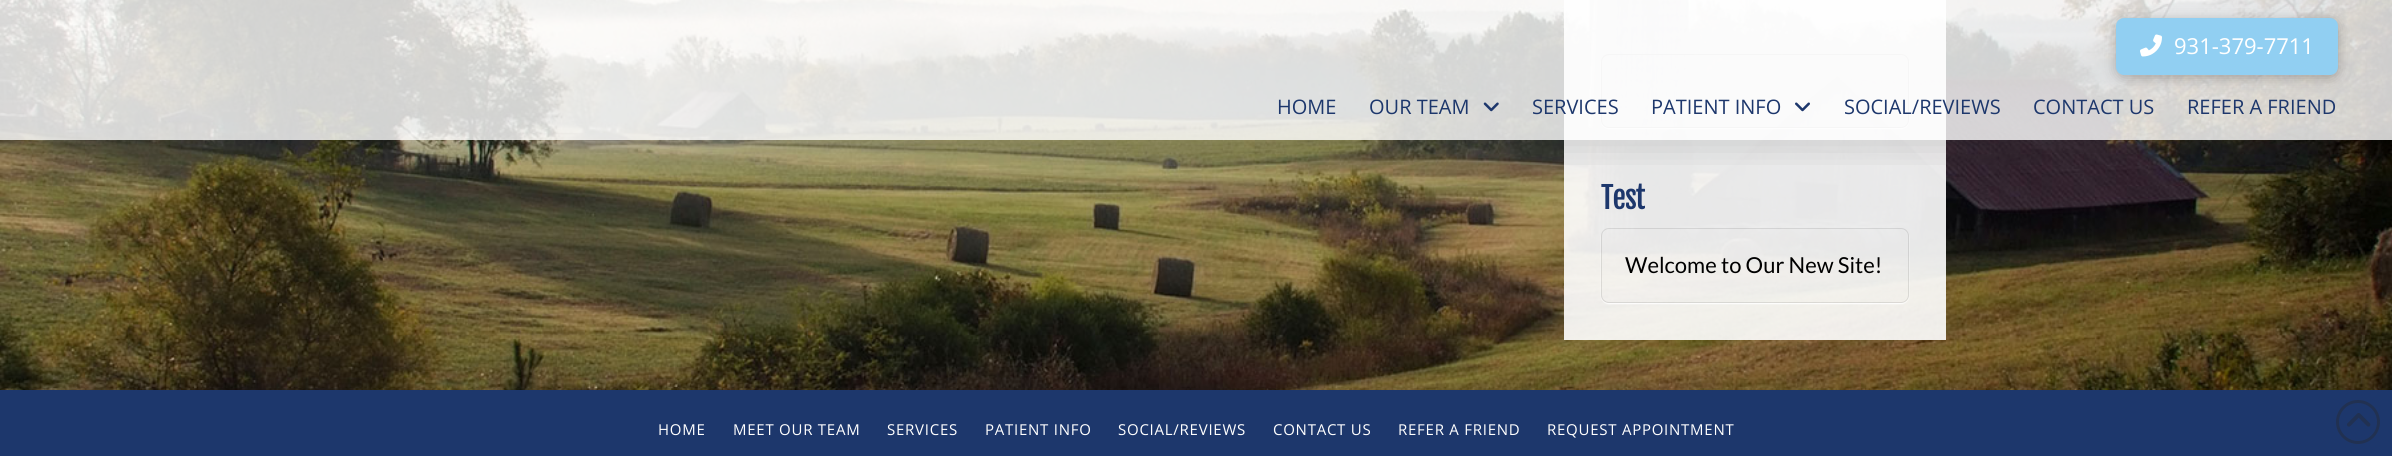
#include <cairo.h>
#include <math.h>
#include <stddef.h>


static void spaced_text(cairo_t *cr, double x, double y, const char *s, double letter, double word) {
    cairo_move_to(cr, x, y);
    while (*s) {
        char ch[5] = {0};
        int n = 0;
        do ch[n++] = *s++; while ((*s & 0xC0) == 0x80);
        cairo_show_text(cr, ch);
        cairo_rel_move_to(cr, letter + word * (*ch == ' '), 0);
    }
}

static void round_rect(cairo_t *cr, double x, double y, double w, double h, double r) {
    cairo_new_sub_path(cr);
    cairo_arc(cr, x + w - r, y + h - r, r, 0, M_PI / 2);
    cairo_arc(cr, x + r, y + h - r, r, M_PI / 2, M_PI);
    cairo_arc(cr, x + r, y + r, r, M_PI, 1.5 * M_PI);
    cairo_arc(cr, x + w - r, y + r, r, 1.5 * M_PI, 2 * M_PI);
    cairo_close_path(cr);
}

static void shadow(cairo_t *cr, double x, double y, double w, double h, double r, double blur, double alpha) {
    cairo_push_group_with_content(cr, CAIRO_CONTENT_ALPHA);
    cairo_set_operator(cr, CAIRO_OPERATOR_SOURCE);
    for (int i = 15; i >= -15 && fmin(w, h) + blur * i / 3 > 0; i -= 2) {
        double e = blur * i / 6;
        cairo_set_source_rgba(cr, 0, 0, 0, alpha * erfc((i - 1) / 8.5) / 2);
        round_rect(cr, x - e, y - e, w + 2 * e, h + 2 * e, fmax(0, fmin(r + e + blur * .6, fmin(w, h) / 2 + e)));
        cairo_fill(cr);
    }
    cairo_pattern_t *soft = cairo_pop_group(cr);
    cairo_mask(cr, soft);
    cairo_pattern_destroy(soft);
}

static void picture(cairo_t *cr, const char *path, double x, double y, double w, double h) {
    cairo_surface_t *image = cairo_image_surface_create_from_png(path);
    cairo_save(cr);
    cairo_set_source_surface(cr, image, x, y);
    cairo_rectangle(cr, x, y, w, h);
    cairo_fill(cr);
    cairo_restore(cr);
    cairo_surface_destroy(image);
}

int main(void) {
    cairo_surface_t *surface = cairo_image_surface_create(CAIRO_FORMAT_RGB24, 2392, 456);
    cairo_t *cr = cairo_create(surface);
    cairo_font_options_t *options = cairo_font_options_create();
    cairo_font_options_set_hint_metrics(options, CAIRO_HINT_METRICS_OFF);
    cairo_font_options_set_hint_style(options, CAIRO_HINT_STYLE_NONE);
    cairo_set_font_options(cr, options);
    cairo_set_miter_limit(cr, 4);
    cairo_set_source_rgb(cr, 1, 1, 1);
    cairo_paint(cr);
    picture(cr, "img1.png", 0, 0, 2392, 390);
    cairo_set_source_rgba(cr, 1, 1, 1, 0.9);
    cairo_rectangle(cr, 1564, 0, 382, 340);
    cairo_fill(cr);
    cairo_save(cr);
    cairo_set_fill_rule(cr, CAIRO_FILL_RULE_EVEN_ODD);
    cairo_new_path(cr);
    cairo_move_to(cr, 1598, 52);
    cairo_line_to(cr, 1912, 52);
    cairo_line_to(cr, 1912, 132);
    cairo_line_to(cr, 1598, 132);
    cairo_close_path(cr);
    cairo_move_to(cr, 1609, 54);
    cairo_line_to(cr, 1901, 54);
    cairo_curve_to(cr, 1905.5, 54, 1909, 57.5, 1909, 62);
    cairo_line_to(cr, 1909, 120);
    cairo_curve_to(cr, 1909, 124.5, 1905.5, 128, 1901, 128);
    cairo_line_to(cr, 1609, 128);
    cairo_curve_to(cr, 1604.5, 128, 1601, 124.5, 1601, 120);
    cairo_line_to(cr, 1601, 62);
    cairo_curve_to(cr, 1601, 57.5, 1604.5, 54, 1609, 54);
    cairo_close_path(cr);
    cairo_clip(cr);
    cairo_set_source_rgb(cr, 1, 1, 1);
    shadow(cr, 1601, 55, 308, 74, 8, 0.5, 0.95);
    cairo_restore(cr);
    round_rect(cr, 1601.5, 54.5, 307, 73, 7.5);
    cairo_set_source_rgba(cr, 0, 0, 0, 0.1);
    cairo_set_line_width(cr, 1);
    cairo_stroke(cr);
    cairo_save(cr);
    cairo_rectangle(cr, 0, 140, 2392, 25);
    cairo_clip(cr);
    cairo_set_source_rgb(cr, 0, 0, 0);
    shadow(cr, 0, 3, 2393, 140, 0, 20, 0.15);
    cairo_restore(cr);
    cairo_save(cr);
    round_rect(cr, 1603, 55, 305, 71, 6);
    cairo_clip(cr);
    cairo_set_fill_rule(cr, CAIRO_FILL_RULE_EVEN_ODD);
    cairo_new_path(cr);
    cairo_move_to(cr, 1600, 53);
    cairo_line_to(cr, 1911, 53);
    cairo_line_to(cr, 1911, 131);
    cairo_line_to(cr, 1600, 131);
    cairo_close_path(cr);
    cairo_move_to(cr, 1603, 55);
    cairo_line_to(cr, 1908, 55);
    cairo_line_to(cr, 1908, 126);
    cairo_line_to(cr, 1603, 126);
    cairo_close_path(cr);
    cairo_clip(cr);
    cairo_set_source_rgb(cr, 1, 1, 1);
    shadow(cr, 1603, 56, 305, 72, 0, 0.5, 0.95);
    cairo_restore(cr);
    cairo_set_source_rgba(cr, 1, 1, 1, 0.8);
    cairo_rectangle(cr, 0, 0, 2392, 140);
    cairo_fill(cr);
    cairo_set_source_rgb(cr, 0, 0, 0);
    shadow(cr, 2116, 20, 222, 58, 8, 6.5, 0.25);
    cairo_set_source_rgb(cr, 0.569, 0.812, 0.949);
    round_rect(cr, 2116, 18, 222, 57, 8);
    cairo_fill(cr);
    picture(cr, "img2.png", 2140, 34, 22, 23);
    cairo_select_font_face(cr, "Open Sans", CAIRO_FONT_SLANT_NORMAL, CAIRO_FONT_WEIGHT_NORMAL);
    cairo_set_font_size(cr, 22);
    cairo_set_source_rgb(cr, 1, 1, 1);
    cairo_move_to(cr, 2174, 54);
    cairo_show_text(cr, "931-379-7711");
    cairo_set_font_size(cr, 20);
    cairo_set_source_rgb(cr, 0.114, 0.216, 0.424);
    cairo_move_to(cr, 1277, 114);
    cairo_show_text(cr, "HOME");
    cairo_move_to(cr, 1369, 114);
    cairo_show_text(cr, "OUR TEAM");
    picture(cr, "img3.png", 1483, 102, 16, 10);
    cairo_move_to(cr, 1532, 114);
    cairo_show_text(cr, "SERVICES");
    cairo_move_to(cr, 1651, 114);
    cairo_show_text(cr, "PATIENT INFO");
    picture(cr, "img4.png", 1795, 102, 15, 10);
    cairo_move_to(cr, 1844, 114);
    cairo_show_text(cr, "SOCIAL/REVIEWS");
    cairo_move_to(cr, 2033, 114);
    cairo_show_text(cr, "CONTACT US");
    cairo_move_to(cr, 2187, 114);
    cairo_show_text(cr, "REFER A FRIEND");
    cairo_select_font_face(cr, "Fjalla One", CAIRO_FONT_SLANT_NORMAL, CAIRO_FONT_WEIGHT_NORMAL);
    cairo_set_font_size(cr, 30);
    spaced_text(cr, 1601, 209, "Test", -1, 0);
    cairo_save(cr);
    cairo_set_fill_rule(cr, CAIRO_FILL_RULE_EVEN_ODD);
    cairo_new_path(cr);
    cairo_move_to(cr, 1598, 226);
    cairo_line_to(cr, 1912, 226);
    cairo_line_to(cr, 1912, 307);
    cairo_line_to(cr, 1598, 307);
    cairo_close_path(cr);
    cairo_move_to(cr, 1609, 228);
    cairo_line_to(cr, 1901, 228);
    cairo_curve_to(cr, 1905.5, 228, 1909, 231.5, 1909, 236);
    cairo_line_to(cr, 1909, 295);
    cairo_curve_to(cr, 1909, 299.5, 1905.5, 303, 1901, 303);
    cairo_line_to(cr, 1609, 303);
    cairo_curve_to(cr, 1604.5, 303, 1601, 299.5, 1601, 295);
    cairo_line_to(cr, 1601, 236);
    cairo_curve_to(cr, 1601, 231.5, 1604.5, 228, 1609, 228);
    cairo_close_path(cr);
    cairo_clip(cr);
    cairo_set_source_rgb(cr, 1, 1, 1);
    shadow(cr, 1601, 229, 308, 75, 8, 0.5, 0.95);
    cairo_restore(cr);
    round_rect(cr, 1601.5, 228.5, 307, 74, 7.5);
    cairo_set_source_rgba(cr, 0, 0, 0, 0.1);
    cairo_stroke(cr);
    cairo_save(cr);
    round_rect(cr, 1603, 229, 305, 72, 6);
    cairo_clip(cr);
    cairo_set_fill_rule(cr, CAIRO_FILL_RULE_EVEN_ODD);
    cairo_new_path(cr);
    cairo_move_to(cr, 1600, 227);
    cairo_line_to(cr, 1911, 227);
    cairo_line_to(cr, 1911, 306);
    cairo_line_to(cr, 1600, 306);
    cairo_close_path(cr);
    cairo_move_to(cr, 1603, 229);
    cairo_line_to(cr, 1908, 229);
    cairo_line_to(cr, 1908, 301);
    cairo_line_to(cr, 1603, 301);
    cairo_close_path(cr);
    cairo_clip(cr);
    cairo_set_source_rgb(cr, 1, 1, 1);
    shadow(cr, 1603, 230, 305, 73, 0, 0.5, 0.95);
    cairo_restore(cr);
    cairo_select_font_face(cr, "Lato", CAIRO_FONT_SLANT_NORMAL, CAIRO_FONT_WEIGHT_NORMAL);
    cairo_set_font_size(cr, 22);
    cairo_set_source_rgb(cr, 0, 0, 0);
    cairo_move_to(cr, 1625, 273);
    cairo_show_text(cr, "Welcome to Our New Site!");
    cairo_set_source_rgb(cr, 0, 0, 0);
    shadow(cr, 0, 393, 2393, 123, 0, 20, 0.15);
    cairo_set_source_rgb(cr, 0.114, 0.216, 0.424);
    cairo_rectangle(cr, 0, 390, 2392, 66);
    cairo_fill(cr);
    cairo_select_font_face(cr, "Open Sans", CAIRO_FONT_SLANT_NORMAL, CAIRO_FONT_WEIGHT_NORMAL);
    cairo_set_font_size(cr, 15);
    cairo_set_source_rgb(cr, 1, 1, 1);
    spaced_text(cr, 658, 435, "HOME", 0.75, 0);
    spaced_text(cr, 733, 435, "MEET OUR TEAM", 0.75, 0);
    spaced_text(cr, 887, 435, "SERVICES", 0.75, 0);
    spaced_text(cr, 985, 435, "PATIENT INFO", 0.75, 0);
    spaced_text(cr, 1118, 435, "SOCIAL/REVIEWS", 0.75, 0);
    spaced_text(cr, 1273, 435, "CONTACT US", 0.75, 0);
    spaced_text(cr, 1398, 435, "REFER A FRIEND", 0.75, 0);
    spaced_text(cr, 1547, 435, "REQUEST APPOINTMENT", 0.75, 0);
    cairo_new_path(cr);
    cairo_arc(cr, 2358, 422, 20.5, 0, 2 * M_PI);
    cairo_set_source_rgb(cr, 0.129, 0.192, 0.322);
    cairo_set_line_width(cr, 3);
    cairo_stroke(cr);
    picture(cr, "img5.png", 2347, 413, 24, 14);
    cairo_surface_write_to_png(surface, "page.png");
    cairo_font_options_destroy(options);
    cairo_destroy(cr);
    cairo_surface_destroy(surface);
    return 0;
}
